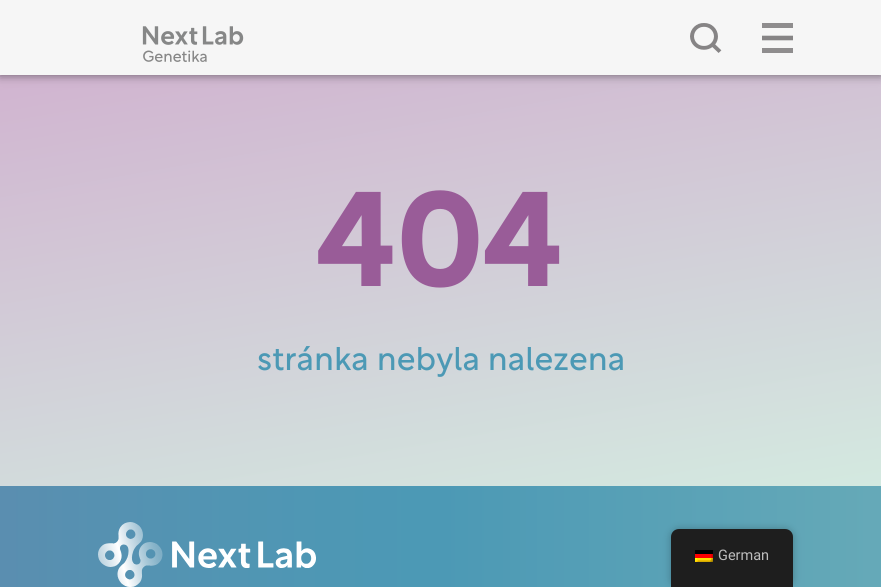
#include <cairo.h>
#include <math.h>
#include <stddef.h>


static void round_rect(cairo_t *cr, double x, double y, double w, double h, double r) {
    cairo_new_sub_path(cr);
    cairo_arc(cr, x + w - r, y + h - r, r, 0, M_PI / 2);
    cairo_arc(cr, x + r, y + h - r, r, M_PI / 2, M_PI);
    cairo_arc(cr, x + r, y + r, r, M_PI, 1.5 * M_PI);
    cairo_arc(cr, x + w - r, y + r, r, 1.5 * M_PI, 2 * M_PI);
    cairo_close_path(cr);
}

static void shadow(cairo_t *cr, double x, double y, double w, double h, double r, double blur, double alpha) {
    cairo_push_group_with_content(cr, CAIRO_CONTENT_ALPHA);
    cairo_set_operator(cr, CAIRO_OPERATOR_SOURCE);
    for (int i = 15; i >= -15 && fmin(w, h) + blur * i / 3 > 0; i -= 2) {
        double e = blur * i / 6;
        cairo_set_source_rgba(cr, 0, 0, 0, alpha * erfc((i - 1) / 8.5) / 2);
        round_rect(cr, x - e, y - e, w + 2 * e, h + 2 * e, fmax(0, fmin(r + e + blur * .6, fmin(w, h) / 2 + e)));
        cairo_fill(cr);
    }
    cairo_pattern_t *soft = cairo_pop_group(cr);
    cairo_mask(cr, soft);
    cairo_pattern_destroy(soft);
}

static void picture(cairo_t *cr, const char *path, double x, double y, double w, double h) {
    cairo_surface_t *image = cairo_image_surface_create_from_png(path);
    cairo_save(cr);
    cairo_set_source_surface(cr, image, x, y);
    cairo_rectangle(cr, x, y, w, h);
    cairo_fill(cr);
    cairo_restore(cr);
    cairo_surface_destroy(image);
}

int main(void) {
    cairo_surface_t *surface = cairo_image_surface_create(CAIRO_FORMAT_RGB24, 881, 587);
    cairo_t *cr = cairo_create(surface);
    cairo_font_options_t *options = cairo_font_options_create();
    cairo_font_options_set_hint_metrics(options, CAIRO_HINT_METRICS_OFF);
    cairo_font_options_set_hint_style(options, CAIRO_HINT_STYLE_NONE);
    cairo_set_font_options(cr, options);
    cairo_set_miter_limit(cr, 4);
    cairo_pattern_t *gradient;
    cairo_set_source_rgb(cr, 1, 1, 1);
    cairo_paint(cr);
    gradient = cairo_pattern_create_linear(392, 5.9, 489, 555);
    cairo_pattern_add_color_stop_rgba(gradient, 0, 0.82, 0.706, 0.816, 1);
    cairo_pattern_add_color_stop_rgba(gradient, 1, 0.827, 0.914, 0.878, 1);
    cairo_set_source(cr, gradient);
    cairo_pattern_destroy(gradient);
    cairo_rectangle(cr, 0, 75, 881, 411);
    cairo_fill(cr);
    cairo_set_source_rgb(cr, 0, 0, 0);
    shadow(cr, 0, 0, 881, 75, 0, 5, 0.5);
    cairo_set_source_rgb(cr, 0.961, 0.961, 0.961);
    cairo_rectangle(cr, 0, 0, 881, 75);
    cairo_fill(cr);
    picture(cr, "img1.png", 142, 26, 102, 36);
    picture(cr, "img2.png", 690, 23, 32, 30);
    cairo_new_path(cr);
    cairo_move_to(cr, 762, 38);
    cairo_line_to(cr, 793, 38);
    cairo_set_source_rgb(cr, 0.525, 0.518, 0.522);
    cairo_set_line_width(cr, 4.6);
    cairo_stroke(cr);
    cairo_set_source_rgb(cr, 0.561, 0.553, 0.557);
    cairo_rectangle(cr, 762, 23, 31, 5);
    cairo_fill(cr);
    cairo_rectangle(cr, 762, 48, 31, 5);
    cairo_fill(cr);
    cairo_select_font_face(cr, "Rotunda", CAIRO_FONT_SLANT_NORMAL, CAIRO_FONT_WEIGHT_BOLD);
    cairo_set_font_size(cr, 132);
    cairo_set_source_rgb(cr, 0.6, 0.361, 0.596);
    cairo_move_to(cr, 317, 286);
    cairo_show_text(cr, "404");
    cairo_select_font_face(cr, "Rotunda", CAIRO_FONT_SLANT_NORMAL, CAIRO_FONT_WEIGHT_NORMAL);
    cairo_set_font_size(cr, 32.6);
    cairo_set_source_rgb(cr, 0.298, 0.6, 0.71);
    cairo_move_to(cr, 257, 370);
    cairo_show_text(cr, "stránka nebyla nalezena");
    picture(cr, "img3.png", 0, 486, 881, 101);
    picture(cr, "img4.png", 98, 522, 218, 65);
    cairo_set_source_rgb(cr, 0, 0, 0);
    shadow(cr, 671, 529, 122, 58, 8, 4, 0.25);
    cairo_set_source_rgb(cr, 0.118, 0.118, 0.118);
    cairo_new_path(cr);
    cairo_move_to(cr, 679, 529);
    cairo_line_to(cr, 785, 529);
    cairo_curve_to(cr, 789.5, 529, 793, 532.5, 793, 537);
    cairo_line_to(cr, 793, 587);
    cairo_line_to(cr, 671, 587);
    cairo_line_to(cr, 671, 537);
    cairo_curve_to(cr, 671, 532.5, 674.5, 529, 679, 529);
    cairo_close_path(cr);
    cairo_fill(cr);
    picture(cr, "img5.png", 695, 550, 18, 12);
    cairo_select_font_face(cr, "Roboto", CAIRO_FONT_SLANT_NORMAL, CAIRO_FONT_WEIGHT_NORMAL);
    cairo_set_font_size(cr, 14.5);
    cairo_set_source_rgb(cr, 0.741, 0.741, 0.741);
    cairo_move_to(cr, 718, 560);
    cairo_show_text(cr, "German");
    cairo_surface_write_to_png(surface, "page.png");
    cairo_font_options_destroy(options);
    cairo_destroy(cr);
    cairo_surface_destroy(surface);
    return 0;
}
